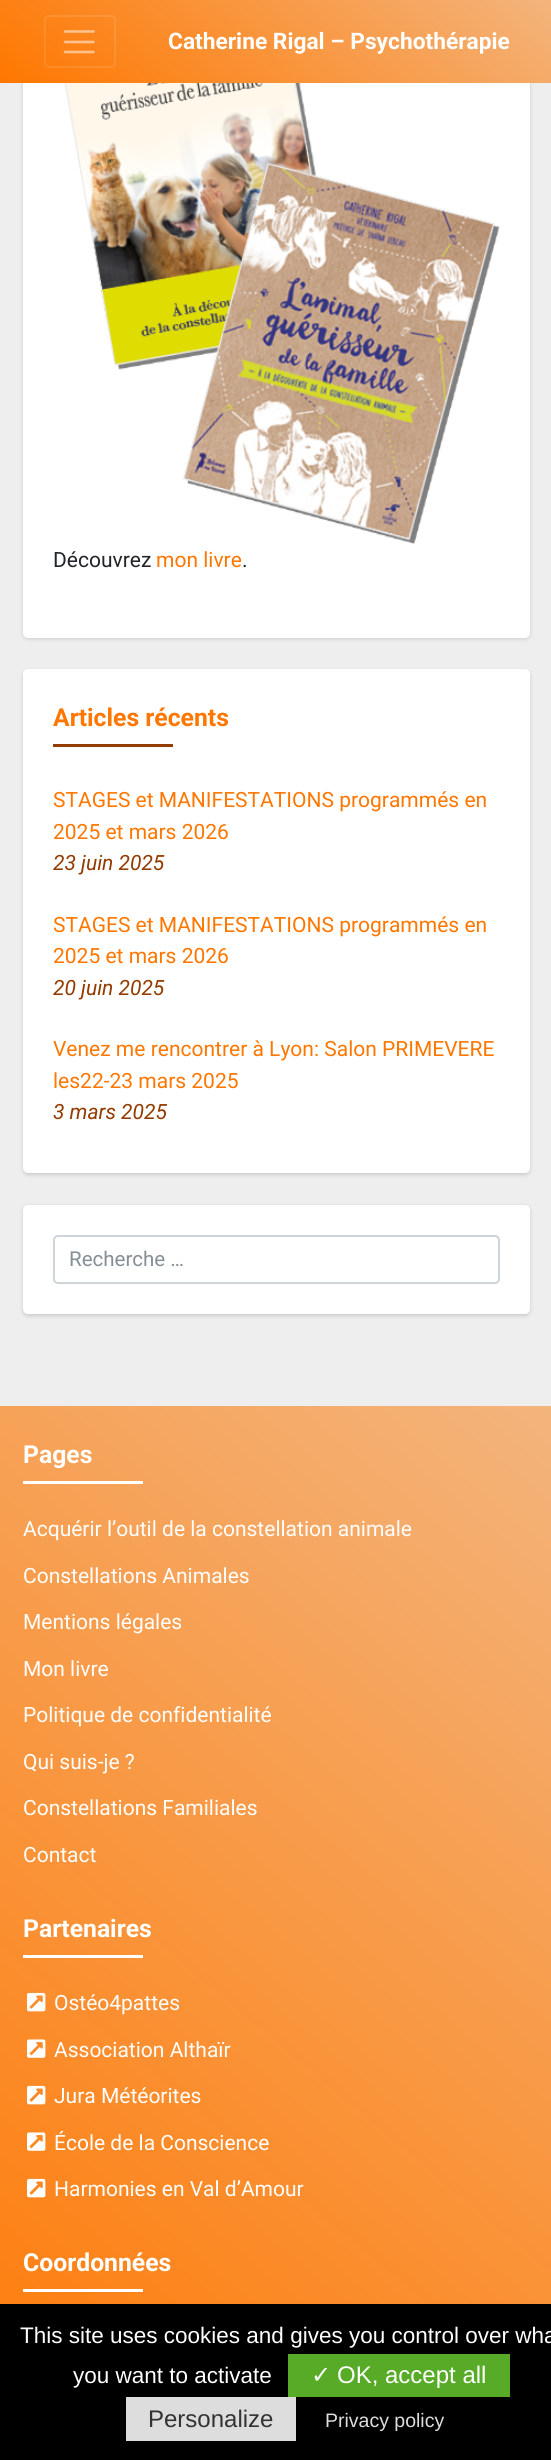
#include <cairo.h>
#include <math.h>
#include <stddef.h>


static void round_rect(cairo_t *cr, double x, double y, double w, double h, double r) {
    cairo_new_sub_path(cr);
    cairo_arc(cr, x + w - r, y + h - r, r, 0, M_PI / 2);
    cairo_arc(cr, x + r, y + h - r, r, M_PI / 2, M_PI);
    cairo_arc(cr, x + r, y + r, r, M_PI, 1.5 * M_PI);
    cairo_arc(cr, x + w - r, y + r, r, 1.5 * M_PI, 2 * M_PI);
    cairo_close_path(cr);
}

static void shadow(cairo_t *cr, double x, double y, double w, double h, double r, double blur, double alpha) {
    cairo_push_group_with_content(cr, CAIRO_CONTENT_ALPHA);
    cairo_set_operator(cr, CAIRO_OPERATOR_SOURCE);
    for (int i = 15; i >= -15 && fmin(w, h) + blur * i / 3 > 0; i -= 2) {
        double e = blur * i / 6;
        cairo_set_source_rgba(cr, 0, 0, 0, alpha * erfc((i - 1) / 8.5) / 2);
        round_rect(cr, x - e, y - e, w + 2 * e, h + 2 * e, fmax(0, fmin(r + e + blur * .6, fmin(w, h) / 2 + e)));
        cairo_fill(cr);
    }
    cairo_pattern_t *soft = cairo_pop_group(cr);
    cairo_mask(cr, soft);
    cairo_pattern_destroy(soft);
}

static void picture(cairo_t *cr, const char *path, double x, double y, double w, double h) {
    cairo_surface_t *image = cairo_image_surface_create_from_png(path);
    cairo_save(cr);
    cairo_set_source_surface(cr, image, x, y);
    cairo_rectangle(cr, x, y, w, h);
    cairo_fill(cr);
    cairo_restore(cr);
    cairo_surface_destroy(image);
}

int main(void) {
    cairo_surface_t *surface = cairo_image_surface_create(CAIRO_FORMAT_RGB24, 551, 2460);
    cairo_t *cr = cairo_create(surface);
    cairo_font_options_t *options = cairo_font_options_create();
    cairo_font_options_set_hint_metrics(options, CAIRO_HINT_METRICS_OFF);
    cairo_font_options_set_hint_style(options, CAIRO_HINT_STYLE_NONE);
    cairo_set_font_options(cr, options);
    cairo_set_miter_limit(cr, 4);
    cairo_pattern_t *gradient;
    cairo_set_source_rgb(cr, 0.933, 0.933, 0.933);
    cairo_paint(cr);
    cairo_set_source_rgb(cr, 0, 0, 0);
    shadow(cr, 23, -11, 507, 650, 5, 2, 0.15);
    cairo_set_source_rgb(cr, 1, 1, 1);
    round_rect(cr, 23, -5, 507, 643, 5);
    cairo_fill(cr);
    gradient = cairo_pattern_create_linear(142, 201, 410, -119);
    cairo_pattern_add_color_stop_rgba(gradient, 0, 1, 0.467, 0, 1);
    cairo_pattern_add_color_stop_rgba(gradient, 1, 0.953, 0.706, 0.486, 1);
    cairo_set_source(cr, gradient);
    cairo_pattern_destroy(gradient);
    cairo_rectangle(cr, 0, 0, 551, 83);
    cairo_fill(cr);
    round_rect(cr, 45, 16, 70, 51, 4);
    cairo_set_source_rgba(cr, 1, 1, 1, 0.1);
    cairo_stroke(cr);
    cairo_new_path(cr);
    cairo_move_to(cr, 65, 31.5);
    cairo_line_to(cr, 93.5, 31.5);
    cairo_move_to(cr, 65, 42);
    cairo_line_to(cr, 93.5, 42);
    cairo_move_to(cr, 65, 52);
    cairo_line_to(cr, 93.5, 52);
    cairo_set_source_rgba(cr, 1, 1, 1, 0.5);
    cairo_set_line_width(cr, 2.6);
    cairo_set_line_cap(cr, CAIRO_LINE_CAP_ROUND);
    cairo_stroke(cr);
    cairo_select_font_face(cr, "Roboto", CAIRO_FONT_SLANT_NORMAL, CAIRO_FONT_WEIGHT_BOLD);
    cairo_set_font_size(cr, 22.75);
    cairo_set_source_rgb(cr, 1, 1, 1);
    cairo_move_to(cr, 168, 49);
    cairo_show_text(cr, "Catherine Rigal – Psychothérapie");
    picture(cr, "img1.png", 63, 83, 437, 461);
    cairo_select_font_face(cr, "Roboto", CAIRO_FONT_SLANT_NORMAL, CAIRO_FONT_WEIGHT_NORMAL);
    cairo_set_font_size(cr, 21);
    cairo_set_source_rgb(cr, 0.129, 0.145, 0.161);
    cairo_move_to(cr, 53, 567);
    cairo_show_text(cr, "Découvrez");
    cairo_set_source_rgb(cr, 1, 0.467, 0);
    cairo_move_to(cr, 156, 567);
    cairo_show_text(cr, "mon livre");
    cairo_set_source_rgb(cr, 0.129, 0.145, 0.161);
    cairo_move_to(cr, 242, 567);
    cairo_show_text(cr, ".");
    cairo_set_source_rgb(cr, 0, 0, 0);
    shadow(cr, 23, 671, 507, 504, 5, 2, 0.15);
    cairo_set_source_rgb(cr, 1, 1, 1);
    round_rect(cr, 23, 669, 507, 504, 5);
    cairo_fill(cr);
    cairo_select_font_face(cr, "Roboto", CAIRO_FONT_SLANT_NORMAL, CAIRO_FONT_WEIGHT_BOLD);
    cairo_set_font_size(cr, 24.75);
    cairo_set_source_rgb(cr, 1, 0.467, 0);
    cairo_move_to(cr, 53, 726);
    cairo_show_text(cr, "Articles récents");
    cairo_set_source_rgb(cr, 0.576, 0.231, 0);
    cairo_rectangle(cr, 53, 744, 120, 3);
    cairo_fill(cr);
    cairo_select_font_face(cr, "Roboto", CAIRO_FONT_SLANT_NORMAL, CAIRO_FONT_WEIGHT_NORMAL);
    cairo_set_font_size(cr, 21);
    cairo_set_source_rgb(cr, 1, 0.467, 0);
    cairo_move_to(cr, 53, 807);
    cairo_show_text(cr, "STAGES et MANIFESTATIONS programmés en");
    cairo_move_to(cr, 53, 839);
    cairo_show_text(cr, "2025 et mars 2026");
    cairo_select_font_face(cr, "Roboto", CAIRO_FONT_SLANT_ITALIC, CAIRO_FONT_WEIGHT_NORMAL);
    cairo_set_source_rgb(cr, 0.576, 0.231, 0);
    cairo_move_to(cr, 53, 870);
    cairo_show_text(cr, "23 juin 2025");
    cairo_select_font_face(cr, "Roboto", CAIRO_FONT_SLANT_NORMAL, CAIRO_FONT_WEIGHT_NORMAL);
    cairo_set_source_rgb(cr, 1, 0.467, 0);
    cairo_move_to(cr, 53, 932);
    cairo_show_text(cr, "STAGES et MANIFESTATIONS programmés en");
    cairo_move_to(cr, 53, 963);
    cairo_show_text(cr, "2025 et mars 2026");
    cairo_select_font_face(cr, "Roboto", CAIRO_FONT_SLANT_ITALIC, CAIRO_FONT_WEIGHT_NORMAL);
    cairo_set_source_rgb(cr, 0.576, 0.231, 0);
    cairo_move_to(cr, 53, 995);
    cairo_show_text(cr, "20 juin 2025");
    cairo_select_font_face(cr, "Roboto", CAIRO_FONT_SLANT_NORMAL, CAIRO_FONT_WEIGHT_NORMAL);
    cairo_set_source_rgb(cr, 1, 0.467, 0);
    cairo_move_to(cr, 53, 1056);
    cairo_show_text(cr, "Venez me rencontrer à Lyon: Salon PRIMEVERE");
    cairo_move_to(cr, 53, 1088);
    cairo_show_text(cr, "les22-23 mars 2025");
    cairo_select_font_face(cr, "Roboto", CAIRO_FONT_SLANT_ITALIC, CAIRO_FONT_WEIGHT_NORMAL);
    cairo_set_source_rgb(cr, 0.576, 0.231, 0);
    cairo_move_to(cr, 53, 1119);
    cairo_show_text(cr, "3 mars 2025");
    cairo_set_source_rgb(cr, 0, 0, 0);
    shadow(cr, 23, 1206, 507, 110, 5, 2, 0.15);
    cairo_set_source_rgb(cr, 1, 1, 1);
    round_rect(cr, 23, 1205, 507, 109, 5);
    cairo_fill(cr);
    round_rect(cr, 54, 1236, 445, 47, 4);
    cairo_set_source_rgb(cr, 0.808, 0.831, 0.855);
    cairo_set_line_width(cr, 2);
    cairo_set_line_cap(cr, CAIRO_LINE_CAP_BUTT);
    cairo_stroke(cr);
    cairo_select_font_face(cr, "Roboto", CAIRO_FONT_SLANT_NORMAL, CAIRO_FONT_WEIGHT_NORMAL);
    cairo_set_font_size(cr, 20.5);
    cairo_set_source_rgb(cr, 0.525, 0.557, 0.588);
    cairo_move_to(cr, 69, 1266);
    cairo_show_text(cr, "Recherche …");
    gradient = cairo_pattern_create_linear(-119, 2448, 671, 1506);
    cairo_pattern_add_color_stop_rgba(gradient, 0, 1, 0.467, 0, 1);
    cairo_pattern_add_color_stop_rgba(gradient, 1, 0.953, 0.706, 0.486, 1);
    cairo_set_source(cr, gradient);
    cairo_pattern_destroy(gradient);
    cairo_rectangle(cr, 0, 1406, 551, 898);
    cairo_fill(cr);
    cairo_select_font_face(cr, "Roboto", CAIRO_FONT_SLANT_NORMAL, CAIRO_FONT_WEIGHT_BOLD);
    cairo_set_font_size(cr, 24.75);
    cairo_set_source_rgb(cr, 1, 1, 1);
    cairo_move_to(cr, 23, 1463);
    cairo_show_text(cr, "Pages");
    cairo_rectangle(cr, 23, 1481, 120, 3);
    cairo_fill(cr);
    cairo_select_font_face(cr, "Roboto", CAIRO_FONT_SLANT_NORMAL, CAIRO_FONT_WEIGHT_NORMAL);
    cairo_set_font_size(cr, 21);
    cairo_move_to(cr, 23, 1536);
    cairo_show_text(cr, "Acquérir l’outil de la constellation animale");
    cairo_move_to(cr, 23, 1583);
    cairo_show_text(cr, "Constellations Animales");
    cairo_move_to(cr, 23, 1629);
    cairo_show_text(cr, "Mentions légales");
    cairo_move_to(cr, 23, 1676);
    cairo_show_text(cr, "Mon livre");
    cairo_move_to(cr, 23, 1722);
    cairo_show_text(cr, "Politique de confidentialité");
    cairo_move_to(cr, 23, 1769);
    cairo_show_text(cr, "Qui suis-je ?");
    cairo_move_to(cr, 23, 1815);
    cairo_show_text(cr, "Constellations Familiales");
    cairo_move_to(cr, 23, 1862);
    cairo_show_text(cr, "Contact");
    cairo_select_font_face(cr, "Roboto", CAIRO_FONT_SLANT_NORMAL, CAIRO_FONT_WEIGHT_BOLD);
    cairo_set_font_size(cr, 24.75);
    cairo_move_to(cr, 23, 1937);
    cairo_show_text(cr, "Partenaires");
    cairo_rectangle(cr, 23, 1955, 120, 3);
    cairo_fill(cr);
    picture(cr, "img2.png", 27, 1992, 19, 20);
    cairo_select_font_face(cr, "Roboto", CAIRO_FONT_SLANT_NORMAL, CAIRO_FONT_WEIGHT_NORMAL);
    cairo_set_font_size(cr, 21);
    cairo_move_to(cr, 54, 2010);
    cairo_show_text(cr, "Ostéo4pattes");
    picture(cr, "img3.png", 27, 2039, 19, 19);
    cairo_move_to(cr, 54, 2057);
    cairo_show_text(cr, "Association Althaïr");
    picture(cr, "img4.png", 27, 2085, 19, 20);
    cairo_move_to(cr, 54, 2103);
    cairo_show_text(cr, "Jura Météorites");
    picture(cr, "img5.png", 27, 2132, 19, 19);
    cairo_move_to(cr, 54, 2150);
    cairo_show_text(cr, "École de la Conscience");
    picture(cr, "img6.png", 27, 2178, 19, 20);
    cairo_move_to(cr, 54, 2196);
    cairo_show_text(cr, "Harmonies en Val d’Amour");
    cairo_select_font_face(cr, "Roboto", CAIRO_FONT_SLANT_NORMAL, CAIRO_FONT_WEIGHT_BOLD);
    cairo_set_font_size(cr, 24.75);
    cairo_move_to(cr, 23, 2271);
    cairo_show_text(cr, "Coordonnées");
    cairo_rectangle(cr, 23, 2289, 120, 3);
    cairo_fill(cr);
    cairo_set_source_rgb(cr, 0, 0, 0);
    cairo_rectangle(cr, 0, 2304, 551, 156);
    cairo_fill(cr);
    cairo_select_font_face(cr, "Liberation Sans", CAIRO_FONT_SLANT_NORMAL, CAIRO_FONT_WEIGHT_NORMAL);
    cairo_set_font_size(cr, 22.5);
    cairo_set_source_rgb(cr, 1, 1, 1);
    cairo_move_to(cr, 20, 2343);
    cairo_show_text(cr, "This site uses cookies and gives you control over wha");
    cairo_move_to(cr, 73, 2383);
    cairo_show_text(cr, "you want to activate");
    cairo_set_source_rgb(cr, 0.341, 0.671, 0.153);
    cairo_rectangle(cr, 288, 2354, 222, 43);
    cairo_fill(cr);
    cairo_select_font_face(cr, "DejaVu Sans", CAIRO_FONT_SLANT_NORMAL, CAIRO_FONT_WEIGHT_NORMAL);
    cairo_set_font_size(cr, 24);
    cairo_set_source_rgb(cr, 1, 1, 1);
    cairo_move_to(cr, 311, 2383);
    cairo_show_text(cr, "✓");
    cairo_select_font_face(cr, "Liberation Sans", CAIRO_FONT_SLANT_NORMAL, CAIRO_FONT_WEIGHT_NORMAL);
    cairo_move_to(cr, 337, 2383);
    cairo_show_text(cr, "OK, accept all");
    cairo_set_source_rgb(cr, 0.867, 0.867, 0.867);
    cairo_rectangle(cr, 126, 2397, 170, 44);
    cairo_fill(cr);
    cairo_set_source_rgb(cr, 0.2, 0.2, 0.2);
    cairo_move_to(cr, 148, 2427);
    cairo_show_text(cr, "Personalize");
    cairo_set_font_size(cr, 19.5);
    cairo_set_source_rgb(cr, 0.867, 0.867, 0.867);
    cairo_move_to(cr, 325, 2427);
    cairo_show_text(cr, "Privacy policy");
    cairo_surface_write_to_png(surface, "page.png");
    cairo_font_options_destroy(options);
    cairo_destroy(cr);
    cairo_surface_destroy(surface);
    return 0;
}
